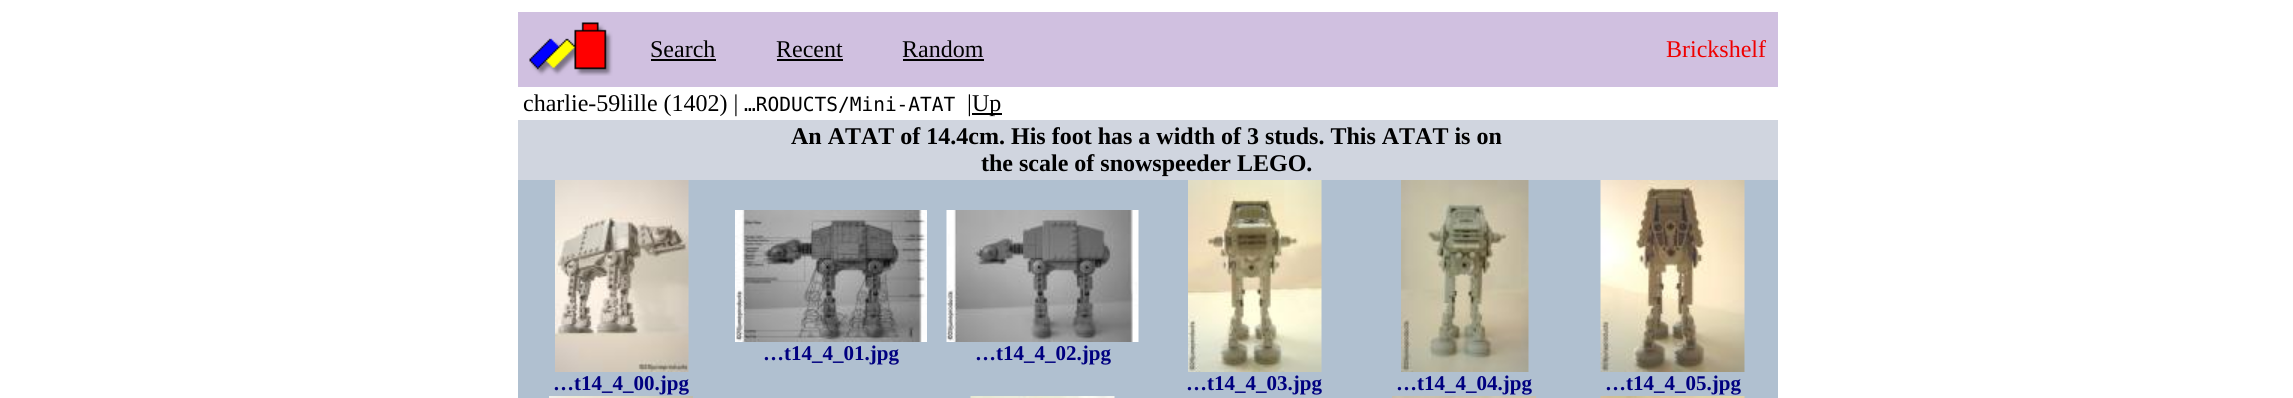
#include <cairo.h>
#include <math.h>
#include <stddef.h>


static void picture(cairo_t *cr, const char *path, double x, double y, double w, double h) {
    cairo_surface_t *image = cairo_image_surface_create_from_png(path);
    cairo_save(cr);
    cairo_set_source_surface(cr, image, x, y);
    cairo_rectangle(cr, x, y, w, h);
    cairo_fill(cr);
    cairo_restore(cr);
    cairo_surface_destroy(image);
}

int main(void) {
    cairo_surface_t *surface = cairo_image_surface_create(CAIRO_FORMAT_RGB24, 2293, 398);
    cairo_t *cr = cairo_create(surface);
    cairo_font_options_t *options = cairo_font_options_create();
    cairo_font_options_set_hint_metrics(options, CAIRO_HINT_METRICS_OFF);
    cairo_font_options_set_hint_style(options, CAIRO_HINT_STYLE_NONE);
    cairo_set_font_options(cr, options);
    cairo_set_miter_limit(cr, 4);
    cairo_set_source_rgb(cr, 1, 1, 1);
    cairo_paint(cr);
    cairo_set_source_rgb(cr, 0.816, 0.753, 0.878);
    cairo_rectangle(cr, 518, 12, 1260, 75);
    cairo_fill(cr);
    picture(cr, "img1.png", 529, 22, 84, 54);
    cairo_select_font_face(cr, "Liberation Serif", CAIRO_FONT_SLANT_NORMAL, CAIRO_FONT_WEIGHT_NORMAL);
    cairo_set_font_size(cr, 24);
    cairo_set_source_rgb(cr, 0, 0, 0);
    cairo_move_to(cr, 650, 57);
    cairo_show_text(cr, "Search");
    cairo_rectangle(cr, 651, 59, 65, 2);
    cairo_fill(cr);
    cairo_move_to(cr, 776, 57);
    cairo_show_text(cr, "Recent");
    cairo_rectangle(cr, 777, 59, 66, 2);
    cairo_fill(cr);
    cairo_move_to(cr, 902, 57);
    cairo_show_text(cr, "Random");
    cairo_rectangle(cr, 903, 59, 81, 2);
    cairo_fill(cr);
    cairo_set_source_rgb(cr, 0.937, 0, 0);
    cairo_move_to(cr, 1666, 57);
    cairo_show_text(cr, "Brickshelf");
    cairo_set_source_rgb(cr, 0, 0, 0);
    cairo_move_to(cr, 523, 111);
    cairo_show_text(cr, "charlie-59lille (1402) |");
    cairo_select_font_face(cr, "DejaVu Sans Mono", CAIRO_FONT_SLANT_NORMAL, CAIRO_FONT_WEIGHT_NORMAL);
    cairo_set_font_size(cr, 19.5);
    cairo_move_to(cr, 744, 111);
    cairo_show_text(cr, "…RODUCTS/Mini-ATAT");
    cairo_select_font_face(cr, "Liberation Serif", CAIRO_FONT_SLANT_NORMAL, CAIRO_FONT_WEIGHT_NORMAL);
    cairo_set_font_size(cr, 24);
    cairo_move_to(cr, 967, 111);
    cairo_show_text(cr, "|");
    cairo_rectangle(cr, 972, 113, 30, 2);
    cairo_fill(cr);
    cairo_move_to(cr, 972, 111);
    cairo_show_text(cr, "Up");
    cairo_set_source_rgb(cr, 0.816, 0.835, 0.875);
    cairo_rectangle(cr, 518, 120, 1260, 60);
    cairo_fill(cr);
    cairo_select_font_face(cr, "Liberation Serif", CAIRO_FONT_SLANT_NORMAL, CAIRO_FONT_WEIGHT_BOLD);
    cairo_set_source_rgb(cr, 0, 0, 0);
    cairo_move_to(cr, 791, 144);
    cairo_show_text(cr, "An ATAT of 14.4cm. His foot has a width of 3 studs. This ATAT is on");
    cairo_move_to(cr, 981, 171);
    cairo_show_text(cr, "the scale of snowspeeder LEGO.");
    cairo_set_source_rgb(cr, 0.69, 0.753, 0.816);
    cairo_rectangle(cr, 518, 180, 1260, 218);
    cairo_fill(cr);
    picture(cr, "img2.png", 735, 210, 192, 132);
    cairo_set_font_size(cr, 21);
    cairo_set_source_rgb(cr, 0, 0, 0.502);
    cairo_move_to(cr, 763, 360);
    cairo_show_text(cr, "…t14_4_01.jpg");
    picture(cr, "img3.png", 946, 210, 193, 132);
    cairo_move_to(cr, 975, 360);
    cairo_show_text(cr, "…t14_4_02.jpg");
    picture(cr, "img4.png", 555, 180, 134, 192);
    cairo_move_to(cr, 553, 390);
    cairo_show_text(cr, "…t14_4_00.jpg");
    picture(cr, "img5.png", 1188, 180, 134, 192);
    cairo_move_to(cr, 1186, 390);
    cairo_show_text(cr, "…t14_4_03.jpg");
    picture(cr, "img6.png", 1401, 180, 128, 192);
    cairo_move_to(cr, 1396, 390);
    cairo_show_text(cr, "…t14_4_04.jpg");
    picture(cr, "img7.png", 1600, 180, 145, 192);
    cairo_move_to(cr, 1605, 390);
    cairo_show_text(cr, "…t14_4_05.jpg");
    picture(cr, "img8.png", 549, 396, 144, 2);
    picture(cr, "img9.png", 970, 396, 145, 2);
    picture(cr, "img10.png", 1392, 396, 144, 2);
    picture(cr, "img11.png", 1600, 396, 145, 2);
    cairo_surface_write_to_png(surface, "page.png");
    cairo_font_options_destroy(options);
    cairo_destroy(cr);
    cairo_surface_destroy(surface);
    return 0;
}
